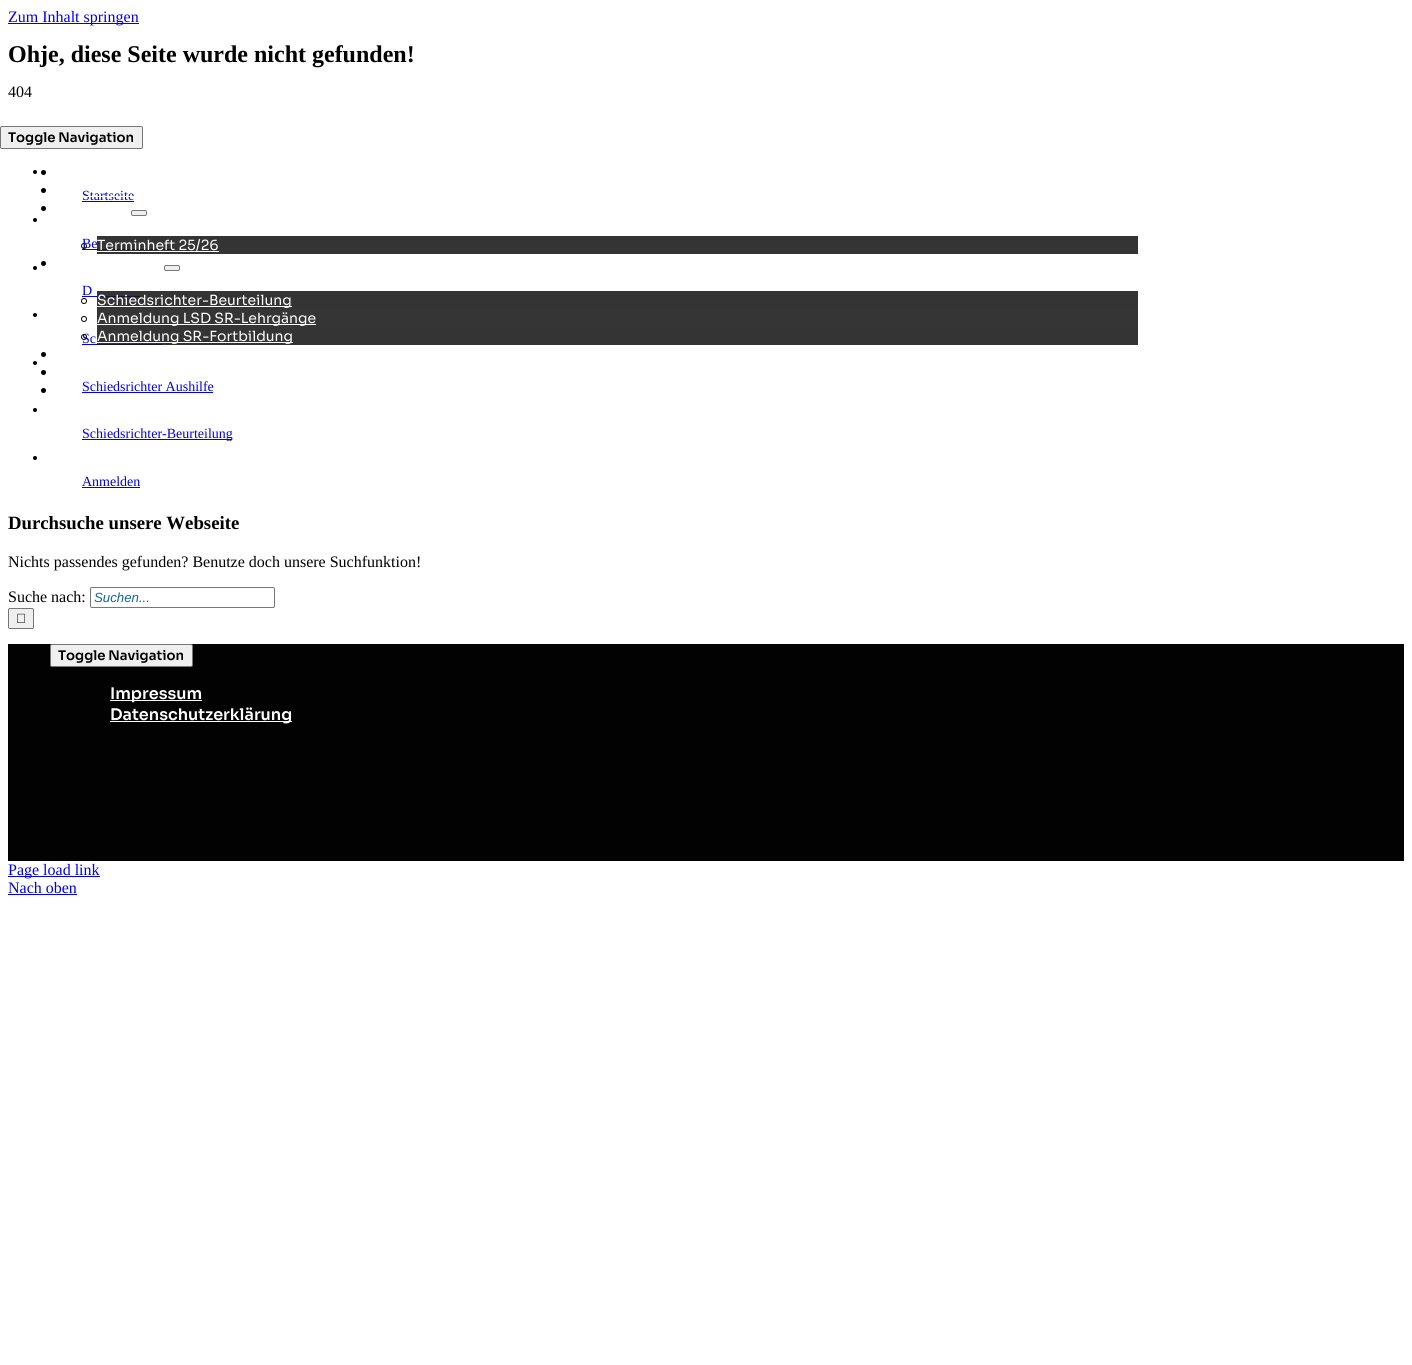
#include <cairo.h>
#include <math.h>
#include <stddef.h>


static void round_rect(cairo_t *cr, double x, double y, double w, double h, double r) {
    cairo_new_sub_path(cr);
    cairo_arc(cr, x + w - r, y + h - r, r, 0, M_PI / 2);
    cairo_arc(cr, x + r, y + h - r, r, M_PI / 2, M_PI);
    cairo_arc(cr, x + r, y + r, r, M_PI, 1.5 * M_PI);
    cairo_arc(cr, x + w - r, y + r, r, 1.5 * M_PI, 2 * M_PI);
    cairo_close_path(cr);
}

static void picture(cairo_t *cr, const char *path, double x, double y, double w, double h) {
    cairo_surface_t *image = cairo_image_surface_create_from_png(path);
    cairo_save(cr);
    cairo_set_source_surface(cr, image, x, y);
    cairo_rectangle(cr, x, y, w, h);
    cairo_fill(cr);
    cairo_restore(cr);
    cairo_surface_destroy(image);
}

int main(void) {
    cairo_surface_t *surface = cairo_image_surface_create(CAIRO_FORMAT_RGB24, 1412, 1365);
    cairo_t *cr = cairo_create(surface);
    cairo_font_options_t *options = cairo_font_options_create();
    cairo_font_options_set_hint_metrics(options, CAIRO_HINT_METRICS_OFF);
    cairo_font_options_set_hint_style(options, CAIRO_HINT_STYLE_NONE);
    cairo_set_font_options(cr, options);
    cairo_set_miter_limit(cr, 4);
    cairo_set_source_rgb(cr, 1, 1, 1);
    cairo_paint(cr);
    cairo_set_source_rgb(cr, 0, 0, 0.933);
    cairo_rectangle(cr, 8, 23, 131, 1);
    cairo_fill(cr);
    cairo_select_font_face(cr, "Liberation Serif", CAIRO_FONT_SLANT_NORMAL, CAIRO_FONT_WEIGHT_NORMAL);
    cairo_set_font_size(cr, 16);
    cairo_move_to(cr, 8, 22);
    cairo_show_text(cr, "Zum Inhalt springen");
    cairo_select_font_face(cr, "Liberation Serif", CAIRO_FONT_SLANT_NORMAL, CAIRO_FONT_WEIGHT_BOLD);
    cairo_set_font_size(cr, 24);
    cairo_set_source_rgb(cr, 0, 0, 0);
    cairo_move_to(cr, 8, 62);
    cairo_show_text(cr, "Ohje, diese Seite wurde nicht gefunden!");
    cairo_select_font_face(cr, "Liberation Serif", CAIRO_FONT_SLANT_NORMAL, CAIRO_FONT_WEIGHT_NORMAL);
    cairo_set_font_size(cr, 16);
    cairo_move_to(cr, 8, 97);
    cairo_show_text(cr, "404");
    cairo_new_path(cr);
    cairo_arc(cr, 35, 172, 2, 0, 2 * M_PI);
    cairo_fill(cr);
    cairo_set_font_size(cr, 14);
    cairo_set_source_rgb(cr, 0, 0, 0.933);
    cairo_move_to(cr, 82, 200);
    cairo_show_text(cr, "Startseite");
    cairo_rectangle(cr, 82, 201, 52, 1);
    cairo_fill(cr);
    cairo_set_source_rgb(cr, 0, 0, 0);
    cairo_arc(cr, 35, 220, 2, 0, 2 * M_PI);
    cairo_fill(cr);
    cairo_set_source_rgb(cr, 0, 0, 0.933);
    cairo_move_to(cr, 82, 248);
    cairo_show_text(cr, "Be");
    cairo_rectangle(cr, 82, 249, 91, 1);
    cairo_fill(cr);
    cairo_set_source_rgb(cr, 0, 0, 0);
    cairo_arc(cr, 35, 268, 2, 0, 2 * M_PI);
    cairo_fill(cr);
    cairo_set_source_rgb(cr, 0, 0, 0.933);
    cairo_move_to(cr, 82, 295);
    cairo_show_text(cr, "D");
    cairo_rectangle(cr, 82, 296, 58, 1);
    cairo_fill(cr);
    cairo_set_source_rgb(cr, 0, 0, 0);
    cairo_arc(cr, 35, 315, 2, 0, 2 * M_PI);
    cairo_fill(cr);
    cairo_set_source_rgb(cr, 0, 0, 0.933);
    cairo_move_to(cr, 82, 343);
    cairo_show_text(cr, "Sc");
    cairo_rectangle(cr, 82, 344, 80, 1);
    cairo_fill(cr);
    cairo_set_source_rgb(cr, 0, 0, 0);
    cairo_arc(cr, 35, 363, 2, 0, 2 * M_PI);
    cairo_fill(cr);
    cairo_set_source_rgb(cr, 0, 0, 0.933);
    cairo_move_to(cr, 82, 391);
    cairo_show_text(cr, "Schiedsrichter Aushilfe");
    cairo_rectangle(cr, 82, 392, 131, 1);
    cairo_fill(cr);
    cairo_set_source_rgb(cr, 0, 0, 0);
    cairo_arc(cr, 35, 410, 2, 0, 2 * M_PI);
    cairo_fill(cr);
    cairo_set_source_rgb(cr, 0, 0, 0.933);
    cairo_rectangle(cr, 82, 439, 150, 1);
    cairo_fill(cr);
    cairo_move_to(cr, 82, 438);
    cairo_show_text(cr, "Schiedsrichter-Beurteilung");
    cairo_set_source_rgb(cr, 0, 0, 0);
    cairo_new_path(cr);
    cairo_arc(cr, 35, 458, 2, 0, 2 * M_PI);
    cairo_fill(cr);
    cairo_set_source_rgb(cr, 0, 0, 0.933);
    cairo_move_to(cr, 82, 486);
    cairo_show_text(cr, "Anmelden");
    cairo_rectangle(cr, 82, 487, 58, 1);
    cairo_fill(cr);
    cairo_select_font_face(cr, "Liberation Serif", CAIRO_FONT_SLANT_NORMAL, CAIRO_FONT_WEIGHT_BOLD);
    cairo_set_font_size(cr, 18.75);
    cairo_set_source_rgb(cr, 0, 0, 0);
    cairo_move_to(cr, 8, 529);
    cairo_show_text(cr, "Durchsuche unsere Webseite");
    cairo_select_font_face(cr, "Liberation Serif", CAIRO_FONT_SLANT_NORMAL, CAIRO_FONT_WEIGHT_NORMAL);
    cairo_set_font_size(cr, 16);
    cairo_move_to(cr, 8, 567);
    cairo_show_text(cr, "Nichts passendes gefunden? Benutze doch unsere Suchfunktion!");
    cairo_move_to(cr, 8, 602);
    cairo_show_text(cr, "Suche nach:");
    round_rect(cr, 90.5, 587.5, 184, 20, 1.5);
    cairo_set_source_rgb(cr, 0.463, 0.463, 0.463);
    cairo_set_line_width(cr, 1);
    cairo_stroke(cr);
    cairo_select_font_face(cr, "Liberation Sans", CAIRO_FONT_SLANT_ITALIC, CAIRO_FONT_WEIGHT_NORMAL);
    cairo_set_font_size(cr, 13.25);
    cairo_set_source_rgb(cr, 0.063, 0.408, 0.604);
    cairo_move_to(cr, 94, 602);
    cairo_show_text(cr, "Suchen...");
    cairo_set_source_rgb(cr, 0.937, 0.937, 0.937);
    round_rect(cr, 8.5, 608.5, 25, 20, 1.5);
    cairo_fill_preserve(cr);
    cairo_set_source_rgb(cr, 0.463, 0.463, 0.463);
    cairo_stroke(cr);
    picture(cr, "img1.png", 17, 613, 8, 10);
    cairo_set_source_rgb(cr, 0.937, 0.937, 0.937);
    round_rect(cr, 0.5, 126.5, 142, 22, 1.5);
    cairo_fill_preserve(cr);
    cairo_set_source_rgb(cr, 0.463, 0.463, 0.463);
    cairo_stroke(cr);
    cairo_select_font_face(cr, "Sora SemiBold", CAIRO_FONT_SLANT_NORMAL, CAIRO_FONT_WEIGHT_NORMAL);
    cairo_set_source_rgb(cr, 0, 0, 0);
    cairo_move_to(cr, 8, 142);
    cairo_show_text(cr, "Toggle Navigation");
    cairo_new_path(cr);
    cairo_arc(cr, 43.5, 172.5, 2.5, 0, 2 * M_PI);
    cairo_fill(cr);
    cairo_arc(cr, 43.5, 190.5, 2.5, 0, 2 * M_PI);
    cairo_fill(cr);
    cairo_set_source_rgb(cr, 1, 1, 1);
    cairo_rectangle(cr, 86, 196, 48, 1);
    cairo_fill(cr);
    cairo_set_source_rgb(cr, 0, 0, 0);
    cairo_arc(cr, 43.5, 208.5, 2.5, 0, 2 * M_PI);
    cairo_fill(cr);
    cairo_set_source_rgb(cr, 0.937, 0.937, 0.937);
    round_rect(cr, 131.5, 210.5, 15, 5, 1.5);
    cairo_fill_preserve(cr);
    cairo_set_source_rgb(cr, 0.463, 0.463, 0.463);
    cairo_stroke(cr);
    cairo_set_source_rgba(cr, 0.098, 0.098, 0.098, 0.88);
    cairo_rectangle(cr, 97, 236, 1041, 18);
    cairo_fill(cr);
    cairo_arc(cr, 84, 246, 2.5, 0, 2 * M_PI);
    cairo_set_source_rgb(cr, 0, 0, 0);
    cairo_stroke(cr);
    cairo_select_font_face(cr, "Sora", CAIRO_FONT_SLANT_NORMAL, CAIRO_FONT_WEIGHT_NORMAL);
    cairo_set_font_size(cr, 14);
    cairo_set_source_rgb(cr, 1, 1, 1);
    cairo_move_to(cr, 97, 250);
    cairo_show_text(cr, "Terminheft 25/26");
    cairo_rectangle(cr, 97, 251, 122, 1);
    cairo_fill(cr);
    cairo_set_source_rgb(cr, 0, 0, 0);
    cairo_arc(cr, 43.5, 263.5, 2.5, 0, 2 * M_PI);
    cairo_fill(cr);
    cairo_set_source_rgb(cr, 0.937, 0.937, 0.937);
    round_rect(cr, 164.5, 265.5, 15, 5, 1.5);
    cairo_fill_preserve(cr);
    cairo_set_source_rgb(cr, 0.463, 0.463, 0.463);
    cairo_stroke(cr);
    cairo_set_source_rgba(cr, 0.098, 0.098, 0.098, 0.88);
    cairo_rectangle(cr, 97, 291, 1041, 18);
    cairo_fill(cr);
    cairo_arc(cr, 84, 301, 2.5, 0, 2 * M_PI);
    cairo_set_source_rgb(cr, 0, 0, 0);
    cairo_stroke(cr);
    cairo_set_source_rgb(cr, 1, 1, 1);
    cairo_rectangle(cr, 97, 306, 195, 1);
    cairo_fill(cr);
    cairo_move_to(cr, 97, 305);
    cairo_show_text(cr, "Schiedsrichter-Beurteilung");
    cairo_set_source_rgb(cr, 0.208, 0.208, 0.208);
    cairo_rectangle(cr, 97, 309, 1041, 18);
    cairo_fill(cr);
    cairo_arc(cr, 84, 319, 2.5, 0, 2 * M_PI);
    cairo_set_source_rgb(cr, 0, 0, 0);
    cairo_stroke(cr);
    cairo_set_source_rgb(cr, 1, 1, 1);
    cairo_rectangle(cr, 97, 324, 219, 1);
    cairo_fill(cr);
    cairo_move_to(cr, 97, 323);
    cairo_show_text(cr, "Anmeldung LSD SR-Lehrgänge");
    cairo_set_source_rgba(cr, 0.098, 0.098, 0.098, 0.88);
    cairo_rectangle(cr, 97, 327, 1041, 18);
    cairo_fill(cr);
    cairo_arc(cr, 84, 337, 2.5, 0, 2 * M_PI);
    cairo_set_source_rgb(cr, 0, 0, 0);
    cairo_stroke(cr);
    cairo_set_source_rgb(cr, 1, 1, 1);
    cairo_rectangle(cr, 97, 342, 196, 1);
    cairo_fill(cr);
    cairo_move_to(cr, 97, 341);
    cairo_show_text(cr, "Anmeldung SR-Fortbildung");
    cairo_set_source_rgb(cr, 0, 0, 0);
    cairo_new_path(cr);
    cairo_arc(cr, 43.5, 354.5, 2.5, 0, 2 * M_PI);
    cairo_fill(cr);
    cairo_arc(cr, 43.5, 372.5, 2.5, 0, 2 * M_PI);
    cairo_fill(cr);
    cairo_arc(cr, 43.5, 390.5, 2.5, 0, 2 * M_PI);
    cairo_fill(cr);
    cairo_set_source_rgb(cr, 0.008, 0.008, 0.008);
    cairo_rectangle(cr, 8, 644, 1396, 217);
    cairo_fill(cr);
    cairo_set_source_rgb(cr, 0.937, 0.937, 0.937);
    round_rect(cr, 50.5, 644.5, 142, 22, 1.5);
    cairo_fill_preserve(cr);
    cairo_set_source_rgb(cr, 0.463, 0.463, 0.463);
    cairo_stroke(cr);
    cairo_select_font_face(cr, "Sora SemiBold", CAIRO_FONT_SLANT_NORMAL, CAIRO_FONT_WEIGHT_NORMAL);
    cairo_set_font_size(cr, 13.25);
    cairo_set_source_rgb(cr, 0, 0, 0);
    cairo_move_to(cr, 58, 660);
    cairo_show_text(cr, "Toggle Navigation");
    cairo_set_source_rgb(cr, 1, 1, 1);
    cairo_rectangle(cr, 110, 700, 92, 1);
    cairo_fill(cr);
    cairo_set_font_size(cr, 16);
    cairo_move_to(cr, 110, 699);
    cairo_show_text(cr, "Impressum");
    cairo_rectangle(cr, 110, 721, 182, 1);
    cairo_fill(cr);
    cairo_move_to(cr, 110, 720);
    cairo_show_text(cr, "Datenschutzerklärung");
    cairo_set_source_rgb(cr, 0, 0, 0.933);
    cairo_rectangle(cr, 8, 876, 92, 1);
    cairo_fill(cr);
    cairo_select_font_face(cr, "Liberation Serif", CAIRO_FONT_SLANT_NORMAL, CAIRO_FONT_WEIGHT_NORMAL);
    cairo_move_to(cr, 8, 875);
    cairo_show_text(cr, "Page load link");
    cairo_move_to(cr, 8, 893);
    cairo_show_text(cr, "Nach oben");
    cairo_rectangle(cr, 8, 894, 69, 1);
    cairo_fill(cr);
    cairo_surface_write_to_png(surface, "page.png");
    cairo_font_options_destroy(options);
    cairo_destroy(cr);
    cairo_surface_destroy(surface);
    return 0;
}
